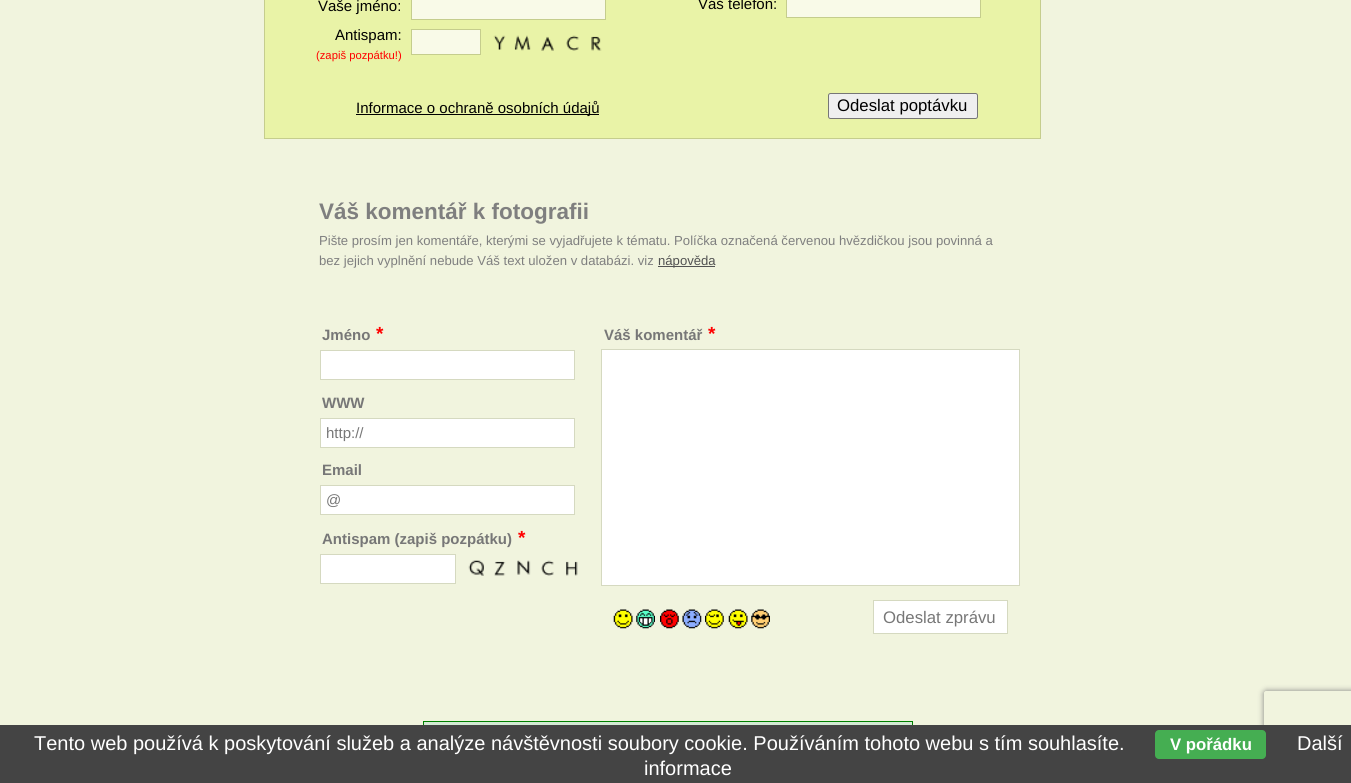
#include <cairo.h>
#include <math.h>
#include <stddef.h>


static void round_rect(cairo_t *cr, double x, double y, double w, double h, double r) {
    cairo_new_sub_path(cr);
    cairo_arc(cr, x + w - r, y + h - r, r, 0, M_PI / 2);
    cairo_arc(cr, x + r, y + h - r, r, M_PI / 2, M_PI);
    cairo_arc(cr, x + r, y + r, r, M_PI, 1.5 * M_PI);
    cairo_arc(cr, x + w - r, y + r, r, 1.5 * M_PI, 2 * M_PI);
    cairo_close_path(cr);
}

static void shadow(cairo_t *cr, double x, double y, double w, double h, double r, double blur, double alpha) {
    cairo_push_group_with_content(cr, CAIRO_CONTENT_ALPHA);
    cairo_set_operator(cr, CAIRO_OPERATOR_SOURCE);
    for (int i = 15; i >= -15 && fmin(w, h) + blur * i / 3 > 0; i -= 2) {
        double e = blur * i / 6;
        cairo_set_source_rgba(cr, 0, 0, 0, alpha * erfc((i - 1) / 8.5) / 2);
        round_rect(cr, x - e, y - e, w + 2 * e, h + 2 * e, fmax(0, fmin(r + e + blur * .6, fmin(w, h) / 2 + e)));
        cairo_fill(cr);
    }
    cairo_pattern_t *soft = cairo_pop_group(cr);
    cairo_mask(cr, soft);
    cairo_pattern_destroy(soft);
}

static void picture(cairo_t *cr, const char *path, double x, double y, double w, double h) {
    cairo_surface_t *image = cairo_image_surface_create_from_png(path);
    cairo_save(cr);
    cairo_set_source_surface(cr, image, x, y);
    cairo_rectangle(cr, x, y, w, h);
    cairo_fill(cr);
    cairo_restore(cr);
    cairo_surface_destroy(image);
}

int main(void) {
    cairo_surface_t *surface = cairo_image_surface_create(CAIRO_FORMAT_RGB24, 1351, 783);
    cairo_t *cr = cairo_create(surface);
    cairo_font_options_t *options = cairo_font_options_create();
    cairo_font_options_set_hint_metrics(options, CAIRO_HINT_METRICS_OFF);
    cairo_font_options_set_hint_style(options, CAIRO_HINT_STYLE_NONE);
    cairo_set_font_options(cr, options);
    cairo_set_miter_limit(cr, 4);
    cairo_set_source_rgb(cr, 0.945, 0.957, 0.871);
    cairo_paint(cr);
    cairo_set_source_rgb(cr, 0.914, 0.953, 0.655);
    cairo_rectangle(cr, 264.5, -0.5, 776, 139);
    cairo_fill_preserve(cr);
    cairo_set_source_rgb(cr, 0.773, 0.804, 0.553);
    cairo_set_line_width(cr, 1);
    cairo_stroke(cr);
    cairo_select_font_face(cr, "Liberation Sans", CAIRO_FONT_SLANT_NORMAL, CAIRO_FONT_WEIGHT_NORMAL);
    cairo_set_font_size(cr, 15);
    cairo_set_source_rgb(cr, 0, 0, 0);
    cairo_move_to(cr, 318, 11);
    cairo_show_text(cr, "Vaše jméno:");
    cairo_set_source_rgb(cr, 0.973, 0.98, 0.91);
    cairo_rectangle(cr, 411.5, -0.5, 194, 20);
    cairo_fill_preserve(cr);
    cairo_set_source_rgb(cr, 0.773, 0.804, 0.553);
    cairo_stroke(cr);
    cairo_set_source_rgb(cr, 0, 0, 0);
    cairo_move_to(cr, 335, 40);
    cairo_show_text(cr, "Antispam:");
    cairo_set_font_size(cr, 11.25);
    cairo_set_source_rgb(cr, 1, 0, 0);
    cairo_move_to(cr, 316, 59);
    cairo_show_text(cr, "(zapiš pozpátku!)");
    cairo_set_source_rgb(cr, 0.973, 0.98, 0.91);
    cairo_rectangle(cr, 411.5, 29.5, 69, 25);
    cairo_fill_preserve(cr);
    cairo_set_source_rgb(cr, 0.773, 0.804, 0.553);
    cairo_stroke(cr);
    picture(cr, "img1.png", 493, 35, 13, 15);
    picture(cr, "img2.png", 514, 35, 17, 16);
    picture(cr, "img3.png", 541, 36, 13, 15);
    picture(cr, "img4.png", 566, 35, 13, 16);
    picture(cr, "img5.png", 591, 36, 11, 15);
    cairo_set_font_size(cr, 15);
    cairo_set_source_rgb(cr, 0, 0, 0);
    cairo_move_to(cr, 698, 9);
    cairo_show_text(cr, "Váš telefon:");
    cairo_set_source_rgb(cr, 0.973, 0.98, 0.91);
    cairo_rectangle(cr, 786.5, -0.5, 194, 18);
    cairo_fill_preserve(cr);
    cairo_set_source_rgb(cr, 0.773, 0.804, 0.553);
    cairo_stroke(cr);
    cairo_set_source_rgb(cr, 0, 0, 0);
    cairo_rectangle(cr, 356, 114, 243, 1);
    cairo_fill(cr);
    cairo_move_to(cr, 356, 113);
    cairo_show_text(cr, "Informace o ochraně osobních údajů");
    cairo_set_source_rgb(cr, 0.937, 0.937, 0.937);
    round_rect(cr, 828.5, 93.5, 149, 25, 2);
    cairo_fill_preserve(cr);
    cairo_set_source_rgb(cr, 0.463, 0.463, 0.463);
    cairo_stroke(cr);
    cairo_set_font_size(cr, 16.75);
    cairo_set_source_rgb(cr, 0, 0, 0);
    cairo_move_to(cr, 837, 111);
    cairo_show_text(cr, "Odeslat poptávku");
    cairo_select_font_face(cr, "Liberation Sans", CAIRO_FONT_SLANT_NORMAL, CAIRO_FONT_WEIGHT_BOLD);
    cairo_set_font_size(cr, 22.5);
    cairo_set_source_rgb(cr, 0.498, 0.498, 0.498);
    cairo_move_to(cr, 319, 219);
    cairo_show_text(cr, "Váš komentář k fotografii");
    cairo_select_font_face(cr, "Liberation Sans", CAIRO_FONT_SLANT_NORMAL, CAIRO_FONT_WEIGHT_NORMAL);
    cairo_set_font_size(cr, 13.12);
    cairo_move_to(cr, 319, 245);
    cairo_show_text(cr, "Pište prosím jen komentáře, kterými se vyjadřujete k tématu. Políčka označená červenou hvězdičkou jsou povinná a");
    cairo_move_to(cr, 319, 265);
    cairo_show_text(cr, "bez jejich vyplnění nebude Váš text uložen v databázi. viz");
    cairo_set_source_rgb(cr, 0.322, 0.322, 0.322);
    cairo_rectangle(cr, 658, 266, 57, 1);
    cairo_fill(cr);
    cairo_move_to(cr, 658, 265);
    cairo_show_text(cr, "nápověda");
    cairo_select_font_face(cr, "Liberation Sans", CAIRO_FONT_SLANT_NORMAL, CAIRO_FONT_WEIGHT_BOLD);
    cairo_set_font_size(cr, 15);
    cairo_set_source_rgb(cr, 0.467, 0.467, 0.467);
    cairo_move_to(cr, 322, 340);
    cairo_show_text(cr, "Jméno");
    cairo_set_font_size(cr, 19);
    cairo_set_source_rgb(cr, 1, 0, 0);
    cairo_move_to(cr, 376, 340);
    cairo_show_text(cr, "*");
    cairo_set_source_rgb(cr, 1, 1, 1);
    cairo_rectangle(cr, 320.5, 350.5, 254, 29);
    cairo_fill_preserve(cr);
    cairo_set_source_rgb(cr, 0.835, 0.851, 0.753);
    cairo_stroke(cr);
    cairo_set_font_size(cr, 15);
    cairo_set_source_rgb(cr, 0.467, 0.467, 0.467);
    cairo_move_to(cr, 322, 408);
    cairo_show_text(cr, "WWW");
    cairo_set_source_rgb(cr, 1, 1, 1);
    cairo_rectangle(cr, 320.5, 418.5, 254, 29);
    cairo_fill_preserve(cr);
    cairo_set_source_rgb(cr, 0.835, 0.851, 0.753);
    cairo_stroke(cr);
    cairo_select_font_face(cr, "Liberation Sans", CAIRO_FONT_SLANT_NORMAL, CAIRO_FONT_WEIGHT_NORMAL);
    cairo_set_source_rgb(cr, 0.467, 0.467, 0.467);
    cairo_move_to(cr, 326, 438);
    cairo_show_text(cr, "http://");
    cairo_select_font_face(cr, "Liberation Sans", CAIRO_FONT_SLANT_NORMAL, CAIRO_FONT_WEIGHT_BOLD);
    cairo_move_to(cr, 322, 475);
    cairo_show_text(cr, "Email");
    cairo_set_source_rgb(cr, 1, 1, 1);
    cairo_rectangle(cr, 320.5, 485.5, 254, 29);
    cairo_fill_preserve(cr);
    cairo_set_source_rgb(cr, 0.835, 0.851, 0.753);
    cairo_stroke(cr);
    cairo_select_font_face(cr, "Liberation Sans", CAIRO_FONT_SLANT_NORMAL, CAIRO_FONT_WEIGHT_NORMAL);
    cairo_set_source_rgb(cr, 0.467, 0.467, 0.467);
    cairo_move_to(cr, 326, 505);
    cairo_show_text(cr, "@");
    cairo_select_font_face(cr, "Liberation Sans", CAIRO_FONT_SLANT_NORMAL, CAIRO_FONT_WEIGHT_BOLD);
    cairo_move_to(cr, 322, 544);
    cairo_show_text(cr, "Antispam (zapiš pozpátku)");
    cairo_set_font_size(cr, 19);
    cairo_set_source_rgb(cr, 1, 0, 0);
    cairo_move_to(cr, 518, 544);
    cairo_show_text(cr, "*");
    cairo_set_source_rgb(cr, 1, 1, 1);
    cairo_rectangle(cr, 320.5, 554.5, 135, 29);
    cairo_fill_preserve(cr);
    cairo_set_source_rgb(cr, 0.835, 0.851, 0.753);
    cairo_stroke(cr);
    picture(cr, "img6.png", 468, 560, 16, 16);
    picture(cr, "img7.png", 494, 561, 12, 15);
    picture(cr, "img8.png", 517, 560, 14, 15);
    picture(cr, "img9.png", 541, 560, 13, 16);
    picture(cr, "img10.png", 566, 561, 12, 15);
    cairo_set_font_size(cr, 15);
    cairo_set_source_rgb(cr, 0.467, 0.467, 0.467);
    cairo_move_to(cr, 604, 340);
    cairo_show_text(cr, "Váš komentář");
    cairo_set_font_size(cr, 19);
    cairo_set_source_rgb(cr, 1, 0, 0);
    cairo_move_to(cr, 708, 340);
    cairo_show_text(cr, "*");
    cairo_set_source_rgb(cr, 1, 1, 1);
    cairo_rectangle(cr, 601.5, 349.5, 418, 236);
    cairo_fill_preserve(cr);
    cairo_set_source_rgb(cr, 0.835, 0.851, 0.753);
    cairo_stroke(cr);
    picture(cr, "img11.png", 613, 609, 20, 20);
    picture(cr, "img12.png", 636, 609, 19, 20);
    picture(cr, "img13.png", 660, 609, 19, 20);
    picture(cr, "img14.png", 682, 609, 20, 20);
    picture(cr, "img15.png", 705, 609, 19, 20);
    picture(cr, "img16.png", 728, 609, 20, 20);
    picture(cr, "img17.png", 751, 609, 19, 20);
    cairo_set_source_rgb(cr, 1, 1, 1);
    cairo_rectangle(cr, 873.5, 600.5, 134, 33);
    cairo_fill_preserve(cr);
    cairo_set_source_rgb(cr, 0.835, 0.851, 0.753);
    cairo_stroke(cr);
    cairo_select_font_face(cr, "Liberation Sans", CAIRO_FONT_SLANT_NORMAL, CAIRO_FONT_WEIGHT_NORMAL);
    cairo_set_font_size(cr, 16.75);
    cairo_set_source_rgb(cr, 0.467, 0.467, 0.467);
    cairo_move_to(cr, 883, 623);
    cairo_show_text(cr, "Odeslat zprávu");
    cairo_save(cr);
    cairo_set_fill_rule(cr, CAIRO_FILL_RULE_EVEN_ODD);
    cairo_new_path(cr);
    cairo_move_to(cr, 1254, 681);
    cairo_line_to(cr, 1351, 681);
    cairo_line_to(cr, 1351, 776);
    cairo_line_to(cr, 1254, 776);
    cairo_close_path(cr);
    cairo_move_to(cr, 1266.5, 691);
    cairo_line_to(cr, 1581.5, 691);
    cairo_curve_to(cr, 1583, 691, 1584, 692, 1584, 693.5);
    cairo_line_to(cr, 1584, 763.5);
    cairo_curve_to(cr, 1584, 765, 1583, 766, 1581.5, 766);
    cairo_line_to(cr, 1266.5, 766);
    cairo_curve_to(cr, 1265, 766, 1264, 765, 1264, 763.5);
    cairo_line_to(cr, 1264, 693.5);
    cairo_curve_to(cr, 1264, 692, 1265, 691, 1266.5, 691);
    cairo_close_path(cr);
    cairo_clip(cr);
    cairo_set_source_rgb(cr, 0.502, 0.502, 0.502);
    shadow(cr, 1264, 691, 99, 75, 2.5, 3, 1);
    cairo_restore(cr);
    cairo_set_source_rgb(cr, 0.831, 0.918, 0.831);
    cairo_rectangle(cr, 424, 722, 488, 3);
    cairo_fill(cr);
    cairo_rectangle(cr, 423.5, 721.5, 489, 34);
    cairo_set_source_rgb(cr, 0, 0.502, 0);
    cairo_stroke(cr);
    cairo_set_source_rgb(cr, 0.267, 0.267, 0.267);
    cairo_rectangle(cr, 0, 725, 1351, 58);
    cairo_fill(cr);
    cairo_set_font_size(cr, 20);
    cairo_set_source_rgb(cr, 1, 1, 1);
    cairo_move_to(cr, 34, 750);
    cairo_show_text(cr, "Tento web používá k poskytování služeb a analýze návštěvnosti soubory cookie. Používáním tohoto webu s tím souhlasíte.");
    cairo_set_source_rgb(cr, 0.271, 0.682, 0.322);
    round_rect(cr, 1155, 730, 111, 29, 4);
    cairo_fill(cr);
    cairo_select_font_face(cr, "Liberation Sans", CAIRO_FONT_SLANT_NORMAL, CAIRO_FONT_WEIGHT_BOLD);
    cairo_set_font_size(cr, 16.75);
    cairo_set_source_rgb(cr, 1, 1, 1);
    cairo_move_to(cr, 1170, 750);
    cairo_show_text(cr, "V pořádku");
    cairo_select_font_face(cr, "Liberation Sans", CAIRO_FONT_SLANT_NORMAL, CAIRO_FONT_WEIGHT_NORMAL);
    cairo_set_font_size(cr, 20);
    cairo_move_to(cr, 1297, 750);
    cairo_show_text(cr, "Další");
    cairo_move_to(cr, 644, 775);
    cairo_show_text(cr, "informace");
    cairo_surface_write_to_png(surface, "page.png");
    cairo_font_options_destroy(options);
    cairo_destroy(cr);
    cairo_surface_destroy(surface);
    return 0;
}
